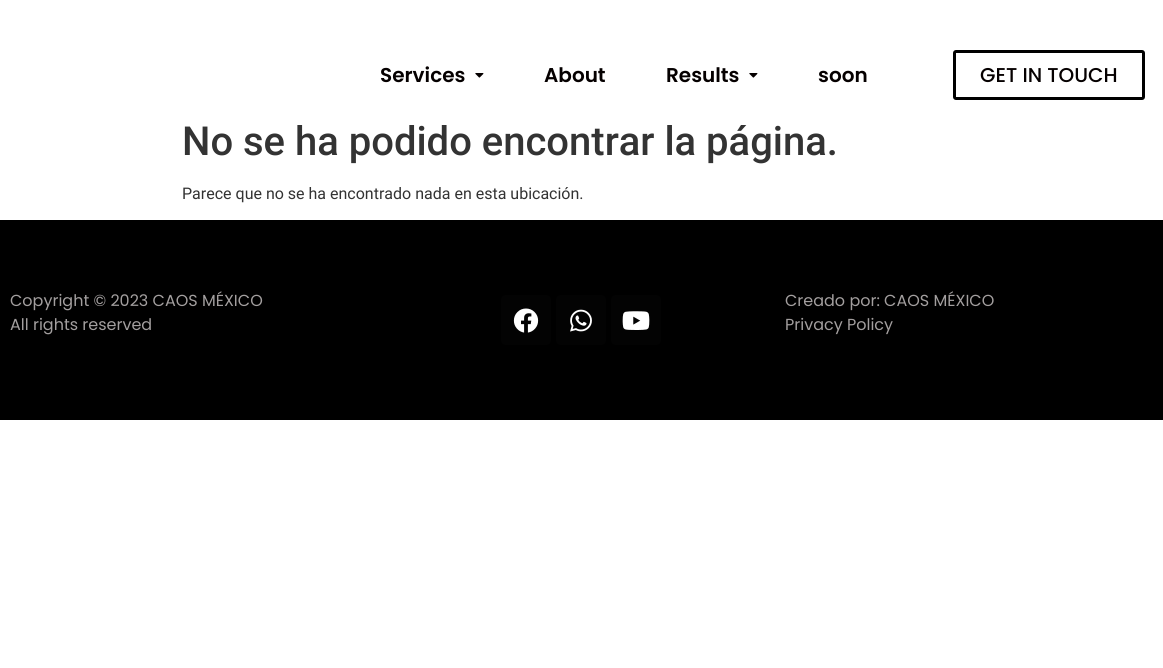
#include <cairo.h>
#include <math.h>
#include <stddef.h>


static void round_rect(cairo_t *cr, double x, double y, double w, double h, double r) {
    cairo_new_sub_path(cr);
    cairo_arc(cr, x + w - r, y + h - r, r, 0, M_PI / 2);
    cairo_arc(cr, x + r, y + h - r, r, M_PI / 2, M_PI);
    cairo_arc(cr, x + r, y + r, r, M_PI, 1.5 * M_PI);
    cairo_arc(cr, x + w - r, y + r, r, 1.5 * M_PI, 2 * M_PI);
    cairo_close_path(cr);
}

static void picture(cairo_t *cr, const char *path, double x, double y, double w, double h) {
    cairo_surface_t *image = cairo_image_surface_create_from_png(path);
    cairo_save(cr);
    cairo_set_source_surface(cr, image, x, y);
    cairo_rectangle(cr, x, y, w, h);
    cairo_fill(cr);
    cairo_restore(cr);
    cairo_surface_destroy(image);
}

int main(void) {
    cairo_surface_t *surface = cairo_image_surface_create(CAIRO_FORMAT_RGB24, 1163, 668);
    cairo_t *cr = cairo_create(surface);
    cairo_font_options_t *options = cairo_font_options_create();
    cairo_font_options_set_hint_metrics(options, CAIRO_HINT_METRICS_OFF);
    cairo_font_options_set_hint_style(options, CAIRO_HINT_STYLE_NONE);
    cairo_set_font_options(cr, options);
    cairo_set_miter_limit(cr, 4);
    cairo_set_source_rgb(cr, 1, 1, 1);
    cairo_paint(cr);
    cairo_select_font_face(cr, "Poppins SemiBold", CAIRO_FONT_SLANT_NORMAL, CAIRO_FONT_WEIGHT_NORMAL);
    cairo_set_font_size(cr, 20);
    cairo_set_source_rgb(cr, 0.02, 0, 0);
    cairo_move_to(cr, 380, 82);
    cairo_show_text(cr, "Services");
    picture(cr, "img1.png", 475, 73, 9, 5);
    cairo_move_to(cr, 544, 82);
    cairo_show_text(cr, "About");
    cairo_move_to(cr, 666, 82);
    cairo_show_text(cr, "Results");
    picture(cr, "img1.png", 749, 73, 9, 5);
    cairo_move_to(cr, 818, 82);
    cairo_show_text(cr, "soon");
    round_rect(cr, 954.5, 51.5, 189, 47, 1.5);
    cairo_set_source_rgb(cr, 0, 0, 0);
    cairo_set_line_width(cr, 3);
    cairo_stroke(cr);
    cairo_select_font_face(cr, "Poppins Medium", CAIRO_FONT_SLANT_NORMAL, CAIRO_FONT_WEIGHT_NORMAL);
    cairo_set_source_rgb(cr, 0.02, 0, 0);
    cairo_move_to(cr, 980, 82);
    cairo_show_text(cr, "GET IN TOUCH");
    cairo_select_font_face(cr, "Roboto Medium", CAIRO_FONT_SLANT_NORMAL, CAIRO_FONT_WEIGHT_NORMAL);
    cairo_set_font_size(cr, 40);
    cairo_set_source_rgb(cr, 0.2, 0.2, 0.2);
    cairo_move_to(cr, 182, 155);
    cairo_show_text(cr, "No se ha podido encontrar la página.");
    cairo_select_font_face(cr, "Roboto", CAIRO_FONT_SLANT_NORMAL, CAIRO_FONT_WEIGHT_NORMAL);
    cairo_set_font_size(cr, 16);
    cairo_move_to(cr, 182, 199);
    cairo_show_text(cr, "Parece que no se ha encontrado nada en esta ubicación.");
    cairo_set_source_rgb(cr, 0, 0, 0);
    cairo_rectangle(cr, 0, 220, 1163, 200);
    cairo_fill(cr);
    cairo_select_font_face(cr, "Poppins", CAIRO_FONT_SLANT_NORMAL, CAIRO_FONT_WEIGHT_NORMAL);
    cairo_set_source_rgb(cr, 0.639, 0.624, 0.624);
    cairo_move_to(cr, 10, 306);
    cairo_show_text(cr, "Copyright © 2023 CAOS MÉXICO");
    cairo_move_to(cr, 10, 330);
    cairo_show_text(cr, "All rights reserved");
    cairo_set_source_rgb(cr, 0.012, 0.012, 0.012);
    round_rect(cr, 501, 295, 50, 50, 5);
    cairo_fill(cr);
    picture(cr, "img2.png", 513, 308, 26, 25);
    round_rect(cr, 556, 295, 50, 50, 5);
    cairo_fill(cr);
    picture(cr, "img3.png", 570, 309, 22, 23);
    round_rect(cr, 611, 295, 50, 50, 5);
    cairo_fill(cr);
    picture(cr, "img4.png", 622, 311, 28, 19);
    cairo_set_source_rgb(cr, 0.639, 0.624, 0.624);
    cairo_move_to(cr, 785, 306);
    cairo_show_text(cr, "Creado por: CAOS MÉXICO");
    cairo_move_to(cr, 785, 330);
    cairo_show_text(cr, "Privacy Policy");
    cairo_surface_write_to_png(surface, "page.png");
    cairo_font_options_destroy(options);
    cairo_destroy(cr);
    cairo_surface_destroy(surface);
    return 0;
}
